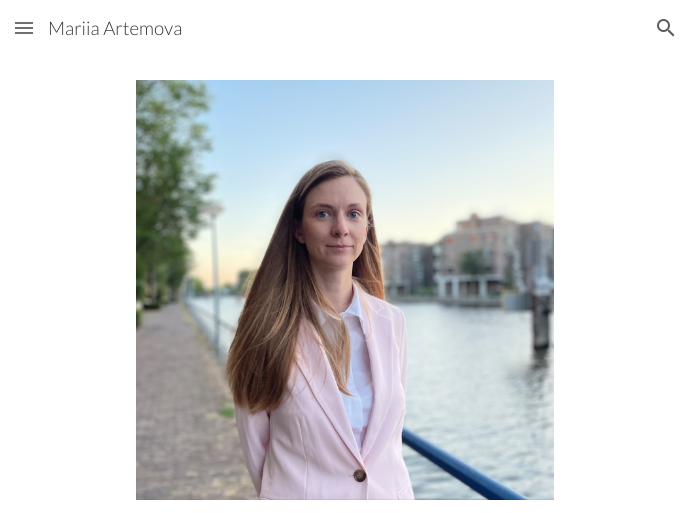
#include <cairo.h>
#include <math.h>
#include <stddef.h>


static void picture(cairo_t *cr, const char *path, double x, double y, double w, double h) {
    cairo_surface_t *image = cairo_image_surface_create_from_png(path);
    cairo_save(cr);
    cairo_set_source_surface(cr, image, x, y);
    cairo_rectangle(cr, x, y, w, h);
    cairo_fill(cr);
    cairo_restore(cr);
    cairo_surface_destroy(image);
}

int main(void) {
    cairo_surface_t *surface = cairo_image_surface_create(CAIRO_FORMAT_RGB24, 690, 513);
    cairo_t *cr = cairo_create(surface);
    cairo_font_options_t *options = cairo_font_options_create();
    cairo_font_options_set_hint_metrics(options, CAIRO_HINT_METRICS_OFF);
    cairo_font_options_set_hint_style(options, CAIRO_HINT_STYLE_NONE);
    cairo_set_font_options(cr, options);
    cairo_set_miter_limit(cr, 4);
    cairo_set_source_rgb(cr, 1, 1, 1);
    cairo_paint(cr);
    cairo_set_source_rgb(cr, 0.439, 0.439, 0.439);
    cairo_rectangle(cr, 15, 22, 18, 2);
    cairo_fill(cr);
    cairo_rectangle(cr, 15, 27, 18, 2);
    cairo_fill(cr);
    cairo_rectangle(cr, 15, 32, 18, 2);
    cairo_fill(cr);
    cairo_select_font_face(cr, "Lato Light", CAIRO_FONT_SLANT_NORMAL, CAIRO_FONT_WEIGHT_NORMAL);
    cairo_set_font_size(cr, 18.75);
    cairo_set_source_rgb(cr, 0.2, 0.2, 0.2);
    cairo_move_to(cr, 48, 35);
    cairo_show_text(cr, "Mariia Artemova");
    picture(cr, "img1.png", 657, 19, 18, 18);
    picture(cr, "img2.png", 136, 80, 418, 420);
    cairo_surface_write_to_png(surface, "page.png");
    cairo_font_options_destroy(options);
    cairo_destroy(cr);
    cairo_surface_destroy(surface);
    return 0;
}
